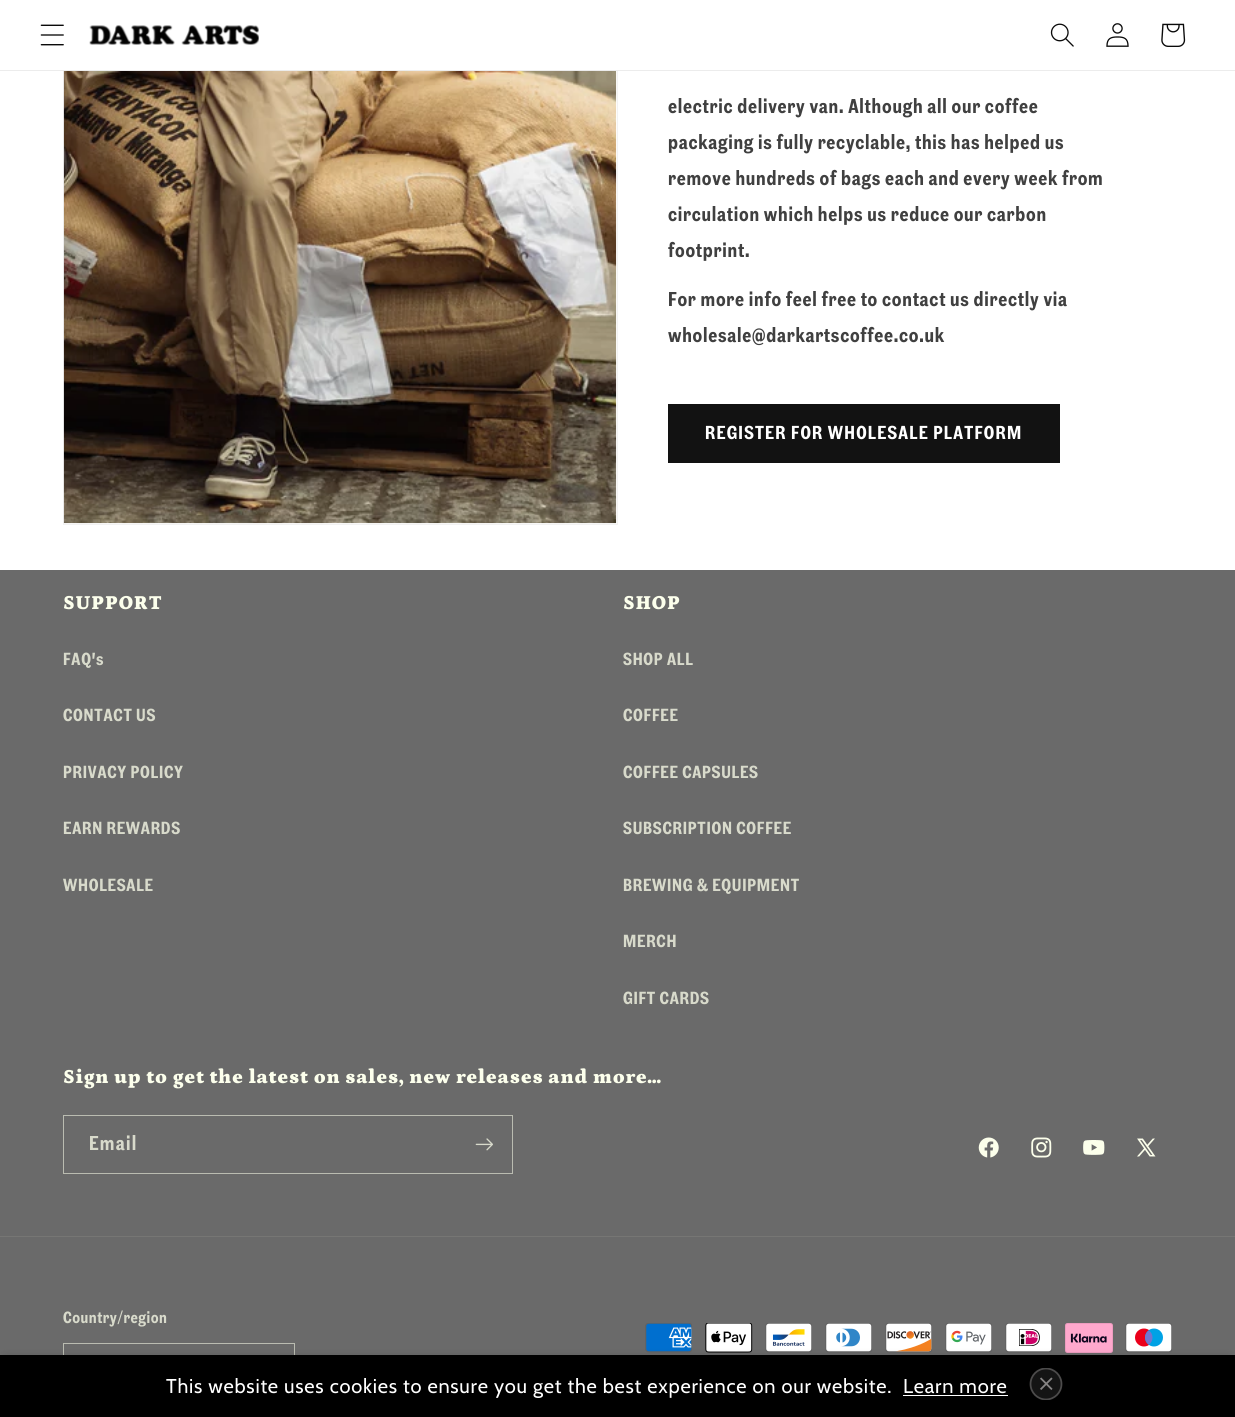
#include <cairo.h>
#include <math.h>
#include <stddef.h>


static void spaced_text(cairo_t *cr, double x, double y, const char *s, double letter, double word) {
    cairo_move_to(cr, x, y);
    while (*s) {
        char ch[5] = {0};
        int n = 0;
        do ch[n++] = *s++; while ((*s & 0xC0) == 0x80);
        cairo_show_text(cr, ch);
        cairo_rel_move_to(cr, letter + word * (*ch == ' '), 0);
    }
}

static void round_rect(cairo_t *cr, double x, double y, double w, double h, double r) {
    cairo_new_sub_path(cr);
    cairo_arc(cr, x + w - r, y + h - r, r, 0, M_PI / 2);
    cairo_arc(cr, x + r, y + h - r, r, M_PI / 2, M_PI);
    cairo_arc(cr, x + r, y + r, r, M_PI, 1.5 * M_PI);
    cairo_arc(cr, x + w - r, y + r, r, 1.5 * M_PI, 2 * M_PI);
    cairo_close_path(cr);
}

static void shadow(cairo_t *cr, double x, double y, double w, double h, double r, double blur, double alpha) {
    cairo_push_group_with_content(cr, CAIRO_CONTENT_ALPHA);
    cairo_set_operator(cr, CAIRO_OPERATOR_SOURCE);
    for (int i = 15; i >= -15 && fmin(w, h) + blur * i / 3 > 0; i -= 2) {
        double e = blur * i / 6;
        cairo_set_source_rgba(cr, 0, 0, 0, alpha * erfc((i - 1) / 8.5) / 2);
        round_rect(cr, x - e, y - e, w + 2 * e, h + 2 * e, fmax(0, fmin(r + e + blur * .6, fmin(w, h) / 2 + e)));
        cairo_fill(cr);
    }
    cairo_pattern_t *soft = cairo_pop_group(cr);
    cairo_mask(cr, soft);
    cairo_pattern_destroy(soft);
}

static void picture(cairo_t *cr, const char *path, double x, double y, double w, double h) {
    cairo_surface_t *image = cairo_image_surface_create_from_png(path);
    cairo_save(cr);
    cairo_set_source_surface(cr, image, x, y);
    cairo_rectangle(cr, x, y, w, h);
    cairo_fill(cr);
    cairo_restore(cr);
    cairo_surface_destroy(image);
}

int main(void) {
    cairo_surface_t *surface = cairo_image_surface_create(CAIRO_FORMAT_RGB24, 1235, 1417);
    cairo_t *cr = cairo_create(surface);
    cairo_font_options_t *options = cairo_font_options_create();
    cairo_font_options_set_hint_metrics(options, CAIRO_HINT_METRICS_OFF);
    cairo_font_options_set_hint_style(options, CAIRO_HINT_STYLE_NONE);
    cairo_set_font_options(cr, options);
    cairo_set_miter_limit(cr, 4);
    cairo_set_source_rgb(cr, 1, 1, 1);
    cairo_paint(cr);
    cairo_rectangle(cr, 63.5, -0.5, 554, 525);
    cairo_set_source_rgb(cr, 0.949, 0.949, 0.949);
    cairo_set_line_width(cr, 1);
    cairo_stroke(cr);
    cairo_set_source_rgb(cr, 1, 1, 1);
    cairo_rectangle(cr, 63, 0, 555, 70);
    cairo_fill(cr);
    cairo_set_source_rgb(cr, 0.922, 0.922, 0.922);
    cairo_rectangle(cr, 0, 70, 1235, 1);
    cairo_fill(cr);
    picture(cr, "img1.png", 40, 24, 24, 22);
    picture(cr, "img2.png", 89, 25, 170, 20);
    picture(cr, "img3.png", 1050, 23, 24, 24);
    picture(cr, "img4.png", 1106, 23, 23, 24);
    picture(cr, "img5.png", 1161, 23, 25, 24);
    picture(cr, "img6.png", 63, 71, 554, 453);
    cairo_select_font_face(cr, "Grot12 SemiBold", CAIRO_FONT_SLANT_NORMAL, CAIRO_FONT_WEIGHT_NORMAL);
    cairo_set_font_size(cr, 20);
    cairo_set_source_rgb(cr, 0.251, 0.251, 0.251);
    spaced_text(cr, 668, 113, "electric delivery van. Although all our coffee", 0.75, 0);
    spaced_text(cr, 668, 149, "packaging is fully recyclable, this has helped us", 0.75, 0);
    spaced_text(cr, 668, 185, "remove hundreds of bags each and every week from", 0.75, 0);
    spaced_text(cr, 668, 221, "circulation which helps us reduce our carbon", 0.75, 0);
    spaced_text(cr, 668, 257, "footprint.", 0.75, 0);
    spaced_text(cr, 668, 306, "For more info feel free to contact us directly via", 0.75, 0);
    spaced_text(cr, 668, 342, "wholesale@darkartscoffee.co.uk", 0.75, 0);
    cairo_set_source_rgb(cr, 0.071, 0.071, 0.071);
    cairo_rectangle(cr, 668, 404, 392, 59);
    cairo_fill(cr);
    cairo_set_font_size(cr, 18.75);
    cairo_set_source_rgb(cr, 1, 1, 1);
    spaced_text(cr, 705, 439, "REGISTER FOR WHOLESALE PLATFORM", 1.25, 0);
    cairo_set_source_rgb(cr, 0.416, 0.416, 0.416);
    cairo_rectangle(cr, 0, 570, 1235, 785);
    cairo_fill(cr);
    cairo_select_font_face(cr, "Petrona Black", CAIRO_FONT_SLANT_NORMAL, CAIRO_FONT_WEIGHT_NORMAL);
    cairo_set_font_size(cr, 20);
    cairo_set_source_rgb(cr, 0.988, 1, 0.922);
    spaced_text(cr, 63, 609, "SUPPORT", 0.75, 0);
    cairo_select_font_face(cr, "Grot12 SemiBold", CAIRO_FONT_SLANT_NORMAL, CAIRO_FONT_WEIGHT_NORMAL);
    cairo_set_font_size(cr, 17.5);
    cairo_set_source_rgb(cr, 0.847, 0.855, 0.796);
    spaced_text(cr, 63, 665, "FAQ's", 0.75, 0);
    spaced_text(cr, 63, 721, "CONTACT US", 0.75, 0);
    spaced_text(cr, 63, 778, "PRIVACY POLICY", 0.75, 0);
    spaced_text(cr, 63, 834, "EARN REWARDS", 0.75, 0);
    spaced_text(cr, 63, 891, "WHOLESALE", 0.75, 0);
    cairo_select_font_face(cr, "Petrona Black", CAIRO_FONT_SLANT_NORMAL, CAIRO_FONT_WEIGHT_NORMAL);
    cairo_set_font_size(cr, 20);
    cairo_set_source_rgb(cr, 0.988, 1, 0.922);
    spaced_text(cr, 623, 609, "SHOP", 0.75, 0);
    cairo_select_font_face(cr, "Grot12 SemiBold", CAIRO_FONT_SLANT_NORMAL, CAIRO_FONT_WEIGHT_NORMAL);
    cairo_set_font_size(cr, 17.5);
    cairo_set_source_rgb(cr, 0.847, 0.855, 0.796);
    spaced_text(cr, 623, 665, "SHOP ALL", 0.75, 0);
    spaced_text(cr, 623, 721, "COFFEE", 0.75, 0);
    spaced_text(cr, 623, 778, "COFFEE CAPSULES", 0.75, 0);
    spaced_text(cr, 623, 834, "SUBSCRIPTION COFFEE", 0.75, 0);
    spaced_text(cr, 623, 891, "BREWING & EQUIPMENT", 0.75, 0);
    spaced_text(cr, 623, 947, "MERCH", 0.75, 0);
    spaced_text(cr, 623, 1004, "GIFT CARDS", 0.75, 0);
    cairo_select_font_face(cr, "Petrona Black", CAIRO_FONT_SLANT_NORMAL, CAIRO_FONT_WEIGHT_NORMAL);
    cairo_set_font_size(cr, 20);
    cairo_set_source_rgb(cr, 0.988, 1, 0.922);
    spaced_text(cr, 63, 1083, "Sign up to get the latest on sales, new releases and more…", 0.75, 0);
    cairo_rectangle(cr, 63.5, 1115.5, 449, 58);
    cairo_set_source_rgb(cr, 0.729, 0.737, 0.694);
    cairo_stroke(cr);
    cairo_select_font_face(cr, "Grot12 SemiBold", CAIRO_FONT_SLANT_NORMAL, CAIRO_FONT_WEIGHT_NORMAL);
    cairo_set_source_rgb(cr, 0.847, 0.855, 0.796);
    spaced_text(cr, 89, 1150, "Email", 1.25, 0);
    picture(cr, "img7.png", 475, 1138, 18, 13);
    picture(cr, "img8.png", 978, 1137, 21, 21);
    picture(cr, "img9.png", 1031, 1137, 21, 21);
    picture(cr, "img10.png", 1083, 1140, 22, 15);
    picture(cr, "img11.png", 1137, 1138, 19, 19);
    cairo_set_source_rgb(cr, 0.463, 0.463, 0.455);
    cairo_rectangle(cr, 0, 1236, 1235, 1);
    cairo_fill(cr);
    cairo_set_font_size(cr, 16.25);
    cairo_set_source_rgb(cr, 0.847, 0.855, 0.796);
    spaced_text(cr, 63, 1323, "Country/region", 0.5, 0);
    cairo_rectangle(cr, 63.5, 1343.5, 231, 51);
    cairo_set_source_rgb(cr, 0.729, 0.737, 0.694);
    cairo_stroke(cr);
    picture(cr, "img12.png", 645, 1323, 47, 30);
    picture(cr, "img13.png", 705, 1323, 48, 30);
    picture(cr, "img14.png", 765, 1323, 47, 30);
    picture(cr, "img15.png", 825, 1323, 47, 30);
    picture(cr, "img16.png", 885, 1323, 47, 30);
    picture(cr, "img17.png", 945, 1323, 47, 30);
    picture(cr, "img18.png", 1005, 1323, 47, 30);
    picture(cr, "img19.png", 1065, 1323, 48, 30);
    picture(cr, "img20.png", 1125, 1323, 47, 30);
    cairo_set_source_rgb(cr, 0, 0, 0);
    cairo_rectangle(cr, 0, 1355, 1235, 62);
    cairo_fill(cr);
    cairo_save(cr);
    cairo_set_fill_rule(cr, CAIRO_FILL_RULE_EVEN_ODD);
    cairo_new_path(cr);
    cairo_move_to(cr, 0, 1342);
    cairo_line_to(cr, 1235, 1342);
    cairo_line_to(cr, 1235, 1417);
    cairo_line_to(cr, 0, 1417);
    cairo_close_path(cr);
    cairo_move_to(cr, 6, 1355);
    cairo_line_to(cr, 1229, 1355);
    cairo_curve_to(cr, 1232.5, 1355, 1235, 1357.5, 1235, 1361);
    cairo_line_to(cr, 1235, 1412);
    cairo_curve_to(cr, 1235, 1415.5, 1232.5, 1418, 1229, 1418);
    cairo_line_to(cr, 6, 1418);
    cairo_curve_to(cr, 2.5, 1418, 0, 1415.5, 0, 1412);
    cairo_line_to(cr, 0, 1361);
    cairo_curve_to(cr, 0, 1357.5, 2.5, 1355, 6, 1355);
    cairo_close_path(cr);
    cairo_clip(cr);
    cairo_set_source_rgb(cr, 0, 0, 0);
    shadow(cr, 0, 1355, 1235, 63, 6, 4, 0.12);
    cairo_restore(cr);
    cairo_select_font_face(cr, "Cabin", CAIRO_FONT_SLANT_NORMAL, CAIRO_FONT_WEIGHT_NORMAL);
    cairo_set_font_size(cr, 20);
    cairo_set_source_rgb(cr, 1, 1, 1);
    spaced_text(cr, 166, 1393, "This website uses cookies to ensure you get the best experience on our website.", 0.75, 0);
    spaced_text(cr, 903, 1393, "Learn more", 0.75, 0);
    cairo_rectangle(cr, 903, 1395, 105, 1);
    cairo_fill(cr);
    picture(cr, "img21.png", 1029, 1368, 34, 32);
    cairo_surface_write_to_png(surface, "page.png");
    cairo_font_options_destroy(options);
    cairo_destroy(cr);
    cairo_surface_destroy(surface);
    return 0;
}
